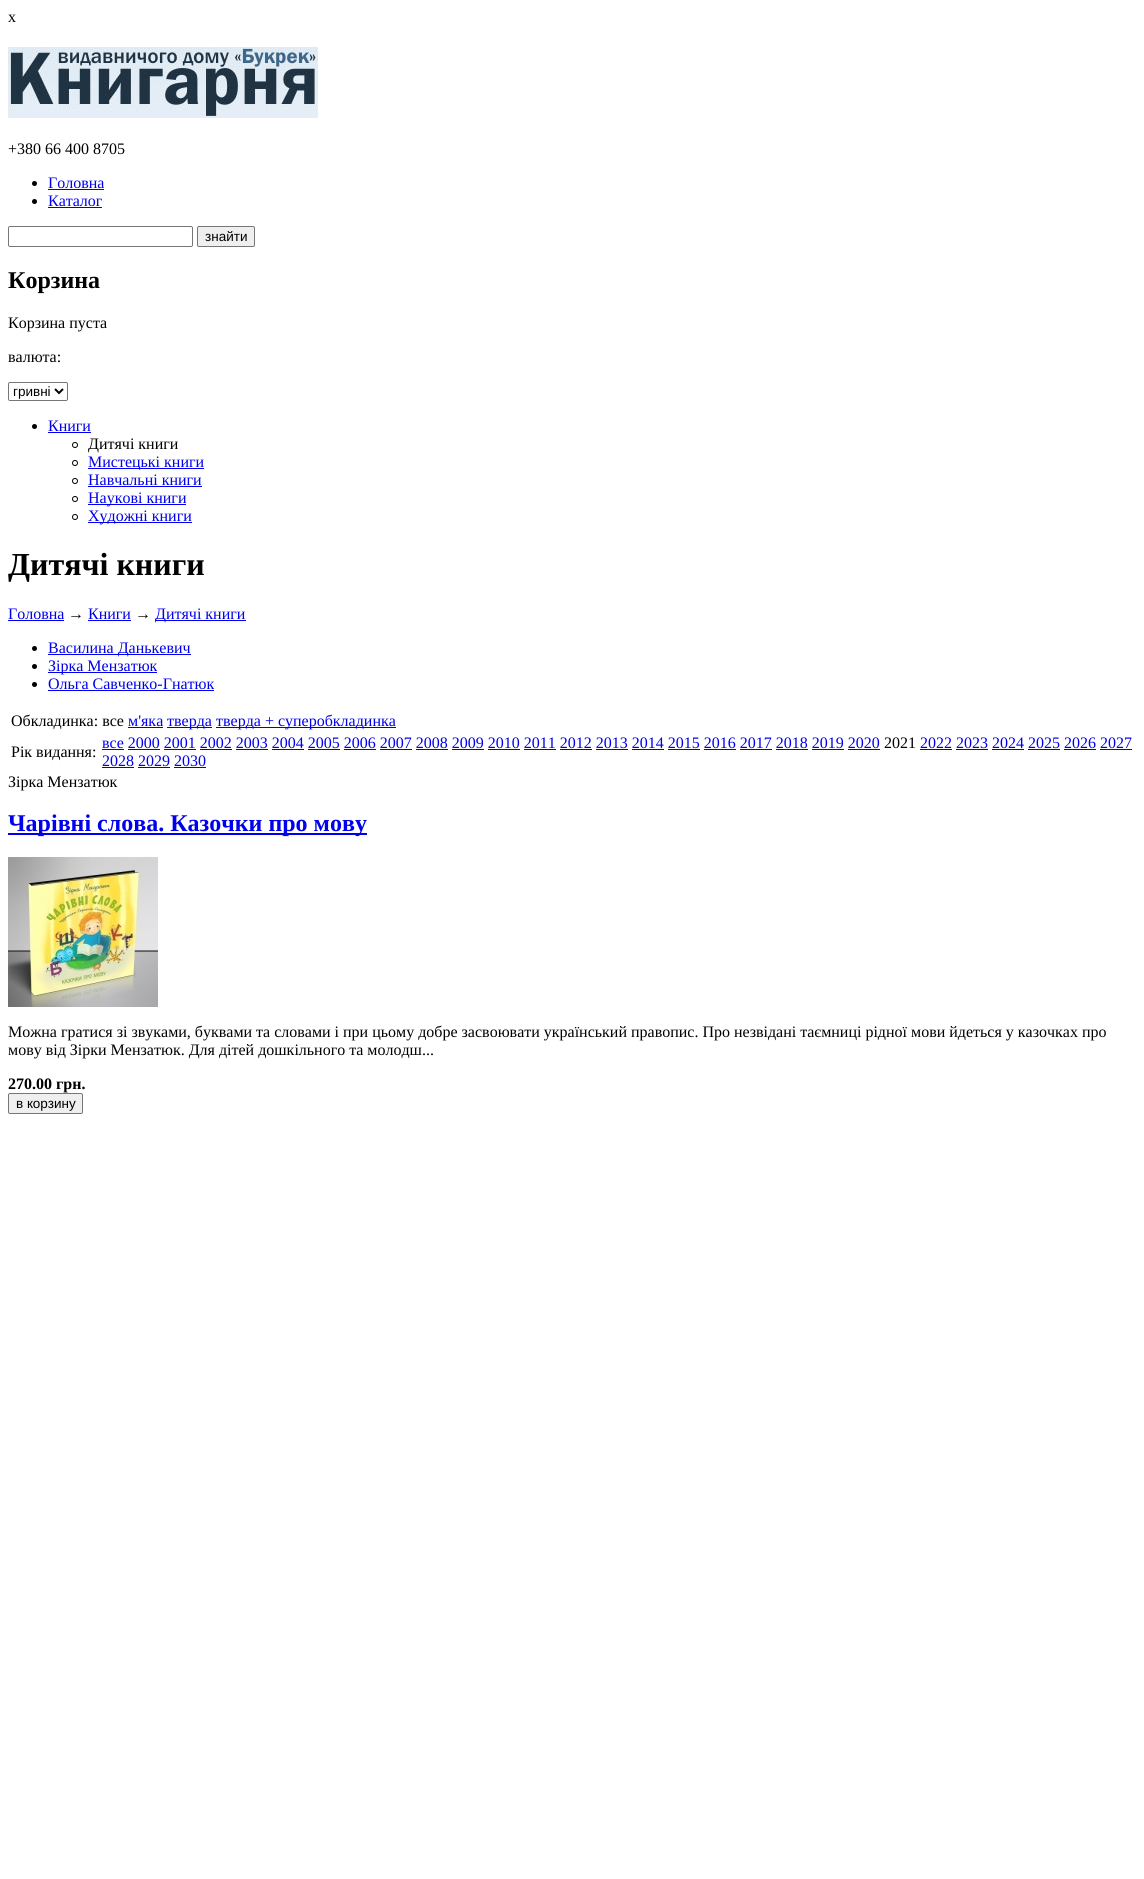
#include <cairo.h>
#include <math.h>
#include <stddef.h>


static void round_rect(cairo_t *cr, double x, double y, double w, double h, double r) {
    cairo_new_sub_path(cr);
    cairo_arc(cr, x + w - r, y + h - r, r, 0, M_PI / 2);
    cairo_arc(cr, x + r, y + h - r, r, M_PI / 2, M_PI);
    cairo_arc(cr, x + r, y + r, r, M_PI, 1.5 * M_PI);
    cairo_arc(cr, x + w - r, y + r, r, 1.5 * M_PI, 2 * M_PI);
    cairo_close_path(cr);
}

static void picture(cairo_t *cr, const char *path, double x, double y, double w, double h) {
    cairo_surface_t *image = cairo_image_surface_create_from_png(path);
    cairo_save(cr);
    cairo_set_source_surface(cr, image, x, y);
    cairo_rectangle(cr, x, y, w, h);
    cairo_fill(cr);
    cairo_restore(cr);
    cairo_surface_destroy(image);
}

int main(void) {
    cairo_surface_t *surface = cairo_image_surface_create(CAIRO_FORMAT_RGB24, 1144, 1879);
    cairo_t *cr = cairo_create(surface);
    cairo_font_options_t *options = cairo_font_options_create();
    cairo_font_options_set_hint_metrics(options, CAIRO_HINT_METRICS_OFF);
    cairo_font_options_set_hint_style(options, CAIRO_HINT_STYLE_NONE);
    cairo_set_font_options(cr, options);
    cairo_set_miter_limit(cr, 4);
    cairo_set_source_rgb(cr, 1, 1, 1);
    cairo_paint(cr);
    cairo_select_font_face(cr, "Liberation Serif", CAIRO_FONT_SLANT_NORMAL, CAIRO_FONT_WEIGHT_NORMAL);
    cairo_set_font_size(cr, 16);
    cairo_set_source_rgb(cr, 0, 0, 0);
    cairo_move_to(cr, 8, 22);
    cairo_show_text(cr, "x");
    picture(cr, "img1.png", 8, 47, 310, 71);
    cairo_move_to(cr, 8, 154);
    cairo_show_text(cr, "+380 66 400 8705");
    cairo_new_path(cr);
    cairo_arc(cr, 34.5, 183.5, 2.5, 0, 2 * M_PI);
    cairo_fill(cr);
    cairo_set_source_rgb(cr, 0, 0, 0.933);
    cairo_move_to(cr, 48, 188);
    cairo_show_text(cr, "Головна");
    cairo_rectangle(cr, 48, 189, 56, 1);
    cairo_fill(cr);
    cairo_set_source_rgb(cr, 0, 0, 0);
    cairo_arc(cr, 34.5, 201.5, 2.5, 0, 2 * M_PI);
    cairo_fill(cr);
    cairo_set_source_rgb(cr, 0, 0, 0.933);
    cairo_move_to(cr, 48, 206);
    cairo_show_text(cr, "Каталог");
    cairo_rectangle(cr, 48, 207, 54, 1);
    cairo_fill(cr);
    round_rect(cr, 8.5, 226.5, 184, 20, 1.5);
    cairo_set_source_rgb(cr, 0.463, 0.463, 0.463);
    cairo_set_line_width(cr, 1);
    cairo_stroke(cr);
    cairo_set_source_rgb(cr, 0.937, 0.937, 0.937);
    round_rect(cr, 197.5, 226.5, 57, 20, 1.5);
    cairo_fill_preserve(cr);
    cairo_set_source_rgb(cr, 0.463, 0.463, 0.463);
    cairo_stroke(cr);
    cairo_select_font_face(cr, "Liberation Sans", CAIRO_FONT_SLANT_NORMAL, CAIRO_FONT_WEIGHT_NORMAL);
    cairo_set_font_size(cr, 13.5);
    cairo_set_source_rgb(cr, 0, 0, 0);
    cairo_move_to(cr, 205, 241);
    cairo_show_text(cr, "знайти");
    cairo_select_font_face(cr, "Liberation Serif", CAIRO_FONT_SLANT_NORMAL, CAIRO_FONT_WEIGHT_BOLD);
    cairo_set_font_size(cr, 24);
    cairo_move_to(cr, 8, 288);
    cairo_show_text(cr, "Корзина");
    cairo_select_font_face(cr, "Liberation Serif", CAIRO_FONT_SLANT_NORMAL, CAIRO_FONT_WEIGHT_NORMAL);
    cairo_set_font_size(cr, 16);
    cairo_move_to(cr, 8, 328);
    cairo_show_text(cr, "Корзина пуста");
    cairo_move_to(cr, 8, 362);
    cairo_show_text(cr, "валюта:");
    round_rect(cr, 8.5, 382.5, 59, 18, 1.5);
    cairo_set_source_rgb(cr, 0.463, 0.463, 0.463);
    cairo_stroke(cr);
    cairo_new_path(cr);
    cairo_move_to(cr, 55, 389);
    cairo_line_to(cr, 59, 393);
    cairo_line_to(cr, 63, 389);
    cairo_set_source_rgb(cr, 0, 0, 0);
    cairo_set_line_width(cr, 2);
    cairo_stroke(cr);
    cairo_select_font_face(cr, "Liberation Sans", CAIRO_FONT_SLANT_NORMAL, CAIRO_FONT_WEIGHT_NORMAL);
    cairo_set_font_size(cr, 13.5);
    cairo_move_to(cr, 13, 396);
    cairo_show_text(cr, "гривні");
    cairo_new_path(cr);
    cairo_arc(cr, 34.5, 426.5, 2.5, 0, 2 * M_PI);
    cairo_fill(cr);
    cairo_select_font_face(cr, "Liberation Serif", CAIRO_FONT_SLANT_NORMAL, CAIRO_FONT_WEIGHT_NORMAL);
    cairo_set_font_size(cr, 16);
    cairo_set_source_rgb(cr, 0, 0, 0.933);
    cairo_move_to(cr, 48, 431);
    cairo_show_text(cr, "Книги");
    cairo_rectangle(cr, 48, 432, 43, 1);
    cairo_fill(cr);
    cairo_arc(cr, 75, 445, 2.5, 0, 2 * M_PI);
    cairo_set_source_rgb(cr, 0, 0, 0);
    cairo_set_line_width(cr, 1);
    cairo_stroke(cr);
    cairo_move_to(cr, 88, 449);
    cairo_show_text(cr, "Дитячі книги");
    cairo_new_path(cr);
    cairo_arc(cr, 75, 463, 2.5, 0, 2 * M_PI);
    cairo_stroke(cr);
    cairo_set_source_rgb(cr, 0, 0, 0.933);
    cairo_rectangle(cr, 88, 468, 116, 1);
    cairo_fill(cr);
    cairo_move_to(cr, 88, 467);
    cairo_show_text(cr, "Мистецькі книги");
    cairo_new_path(cr);
    cairo_arc(cr, 75, 481, 2.5, 0, 2 * M_PI);
    cairo_set_source_rgb(cr, 0, 0, 0);
    cairo_stroke(cr);
    cairo_set_source_rgb(cr, 0, 0, 0.933);
    cairo_move_to(cr, 88, 485);
    cairo_show_text(cr, "Навчальні книги");
    cairo_rectangle(cr, 88, 486, 114, 1);
    cairo_fill(cr);
    cairo_arc(cr, 75, 499, 2.5, 0, 2 * M_PI);
    cairo_set_source_rgb(cr, 0, 0, 0);
    cairo_stroke(cr);
    cairo_set_source_rgb(cr, 0, 0, 0.933);
    cairo_rectangle(cr, 88, 504, 98, 1);
    cairo_fill(cr);
    cairo_move_to(cr, 88, 503);
    cairo_show_text(cr, "Наукові книги");
    cairo_new_path(cr);
    cairo_arc(cr, 75, 517, 2.5, 0, 2 * M_PI);
    cairo_set_source_rgb(cr, 0, 0, 0);
    cairo_stroke(cr);
    cairo_set_source_rgb(cr, 0, 0, 0.933);
    cairo_rectangle(cr, 88, 522, 104, 1);
    cairo_fill(cr);
    cairo_move_to(cr, 88, 521);
    cairo_show_text(cr, "Художні книги");
    cairo_select_font_face(cr, "Liberation Serif", CAIRO_FONT_SLANT_NORMAL, CAIRO_FONT_WEIGHT_BOLD);
    cairo_set_font_size(cr, 32);
    cairo_set_source_rgb(cr, 0, 0, 0);
    cairo_move_to(cr, 8, 575);
    cairo_show_text(cr, "Дитячі книги");
    cairo_select_font_face(cr, "Liberation Serif", CAIRO_FONT_SLANT_NORMAL, CAIRO_FONT_WEIGHT_NORMAL);
    cairo_set_font_size(cr, 16);
    cairo_set_source_rgb(cr, 0, 0, 0.933);
    cairo_move_to(cr, 8, 619);
    cairo_show_text(cr, "Головна");
    cairo_rectangle(cr, 8, 620, 56, 1);
    cairo_fill(cr);
    cairo_set_source_rgb(cr, 0, 0, 0);
    cairo_move_to(cr, 68, 619);
    cairo_show_text(cr, "→");
    cairo_set_source_rgb(cr, 0, 0, 0.933);
    cairo_move_to(cr, 88, 619);
    cairo_show_text(cr, "Книги");
    cairo_rectangle(cr, 88, 620, 43, 1);
    cairo_fill(cr);
    cairo_set_source_rgb(cr, 0, 0, 0);
    cairo_move_to(cr, 135, 619);
    cairo_show_text(cr, "→");
    cairo_set_source_rgb(cr, 0, 0, 0.933);
    cairo_rectangle(cr, 155, 620, 91, 1);
    cairo_fill(cr);
    cairo_move_to(cr, 155, 619);
    cairo_show_text(cr, "Дитячі книги");
    cairo_set_source_rgb(cr, 0, 0, 0);
    cairo_new_path(cr);
    cairo_arc(cr, 34.5, 648.5, 2.5, 0, 2 * M_PI);
    cairo_fill(cr);
    cairo_set_source_rgb(cr, 0, 0, 0.933);
    cairo_rectangle(cr, 48, 654, 143, 1);
    cairo_fill(cr);
    cairo_move_to(cr, 48, 653);
    cairo_show_text(cr, "Василина Данькевич");
    cairo_set_source_rgb(cr, 0, 0, 0);
    cairo_new_path(cr);
    cairo_arc(cr, 34.5, 666.5, 2.5, 0, 2 * M_PI);
    cairo_fill(cr);
    cairo_set_source_rgb(cr, 0, 0, 0.933);
    cairo_rectangle(cr, 48, 672, 109, 1);
    cairo_fill(cr);
    cairo_move_to(cr, 48, 671);
    cairo_show_text(cr, "Зірка Мензатюк");
    cairo_set_source_rgb(cr, 0, 0, 0);
    cairo_new_path(cr);
    cairo_arc(cr, 34.5, 684.5, 2.5, 0, 2 * M_PI);
    cairo_fill(cr);
    cairo_set_source_rgb(cr, 0, 0, 0.933);
    cairo_move_to(cr, 48, 689);
    cairo_show_text(cr, "Ольга Савченко-Гнатюк");
    cairo_rectangle(cr, 48, 690, 166, 1);
    cairo_fill(cr);
    cairo_set_source_rgb(cr, 0, 0, 0);
    cairo_move_to(cr, 11, 726);
    cairo_show_text(cr, "Обкладинка: все");
    cairo_set_source_rgb(cr, 0, 0, 0.933);
    cairo_move_to(cr, 128, 726);
    cairo_show_text(cr, "м'яка");
    cairo_rectangle(cr, 128, 727, 35, 1);
    cairo_fill(cr);
    cairo_rectangle(cr, 167, 727, 45, 1);
    cairo_fill(cr);
    cairo_move_to(cr, 167, 726);
    cairo_show_text(cr, "тверда");
    cairo_rectangle(cr, 216, 727, 180, 1);
    cairo_fill(cr);
    cairo_move_to(cr, 216, 726);
    cairo_show_text(cr, "тверда + суперобкладинка");
    cairo_set_source_rgb(cr, 0, 0, 0);
    cairo_move_to(cr, 11, 757);
    cairo_show_text(cr, "Рік видання:");
    cairo_set_source_rgb(cr, 0, 0, 0.933);
    cairo_move_to(cr, 102, 748);
    cairo_show_text(cr, "все 2000 2001 2002 2003 2004 2005 2006 2007 2008 2009 2010 2011 2012 2013 2014 2015 2016 2017 2018 2019 2020");
    cairo_rectangle(cr, 102, 749, 22, 1);
    cairo_fill(cr);
    cairo_set_source_rgb(cr, 0, 0, 0);
    cairo_move_to(cr, 884, 748);
    cairo_show_text(cr, "2021");
    cairo_set_source_rgb(cr, 0, 0, 0.933);
    cairo_move_to(cr, 920, 748);
    cairo_show_text(cr, "2022 2023 2024 2025 2026 2027");
    cairo_rectangle(cr, 920, 749, 32, 1);
    cairo_fill(cr);
    cairo_rectangle(cr, 128, 749, 32, 1);
    cairo_fill(cr);
    cairo_rectangle(cr, 164, 749, 32, 1);
    cairo_fill(cr);
    cairo_rectangle(cr, 200, 749, 32, 1);
    cairo_fill(cr);
    cairo_rectangle(cr, 236, 749, 32, 1);
    cairo_fill(cr);
    cairo_rectangle(cr, 272, 749, 32, 1);
    cairo_fill(cr);
    cairo_rectangle(cr, 308, 749, 32, 1);
    cairo_fill(cr);
    cairo_rectangle(cr, 344, 749, 32, 1);
    cairo_fill(cr);
    cairo_rectangle(cr, 380, 749, 32, 1);
    cairo_fill(cr);
    cairo_rectangle(cr, 416, 749, 32, 1);
    cairo_fill(cr);
    cairo_rectangle(cr, 452, 749, 32, 1);
    cairo_fill(cr);
    cairo_rectangle(cr, 488, 749, 32, 1);
    cairo_fill(cr);
    cairo_rectangle(cr, 524, 749, 32, 1);
    cairo_fill(cr);
    cairo_rectangle(cr, 560, 749, 32, 1);
    cairo_fill(cr);
    cairo_rectangle(cr, 596, 749, 32, 1);
    cairo_fill(cr);
    cairo_rectangle(cr, 632, 749, 32, 1);
    cairo_fill(cr);
    cairo_rectangle(cr, 668, 749, 32, 1);
    cairo_fill(cr);
    cairo_rectangle(cr, 704, 749, 32, 1);
    cairo_fill(cr);
    cairo_rectangle(cr, 740, 749, 32, 1);
    cairo_fill(cr);
    cairo_rectangle(cr, 776, 749, 32, 1);
    cairo_fill(cr);
    cairo_rectangle(cr, 812, 749, 32, 1);
    cairo_fill(cr);
    cairo_rectangle(cr, 848, 749, 32, 1);
    cairo_fill(cr);
    cairo_rectangle(cr, 956, 749, 32, 1);
    cairo_fill(cr);
    cairo_rectangle(cr, 992, 749, 32, 1);
    cairo_fill(cr);
    cairo_rectangle(cr, 1028, 749, 32, 1);
    cairo_fill(cr);
    cairo_rectangle(cr, 1064, 749, 32, 1);
    cairo_fill(cr);
    cairo_rectangle(cr, 1100, 749, 32, 1);
    cairo_fill(cr);
    cairo_move_to(cr, 102, 766);
    cairo_show_text(cr, "2028 2029 2030");
    cairo_rectangle(cr, 102, 767, 32, 1);
    cairo_fill(cr);
    cairo_rectangle(cr, 138, 767, 32, 1);
    cairo_fill(cr);
    cairo_rectangle(cr, 174, 767, 32, 1);
    cairo_fill(cr);
    cairo_set_source_rgb(cr, 0, 0, 0);
    cairo_move_to(cr, 8, 787);
    cairo_show_text(cr, "Зірка Мензатюк");
    cairo_set_source_rgb(cr, 0, 0, 0.933);
    cairo_rectangle(cr, 8, 833, 359, 2);
    cairo_fill(cr);
    cairo_select_font_face(cr, "Liberation Serif", CAIRO_FONT_SLANT_NORMAL, CAIRO_FONT_WEIGHT_BOLD);
    cairo_set_font_size(cr, 24);
    cairo_move_to(cr, 8, 831);
    cairo_show_text(cr, "Чарівні слова. Казочки про мову");
    picture(cr, "img2.png", 8, 857, 150, 150);
    cairo_select_font_face(cr, "Liberation Serif", CAIRO_FONT_SLANT_NORMAL, CAIRO_FONT_WEIGHT_NORMAL);
    cairo_set_font_size(cr, 16);
    cairo_set_source_rgb(cr, 0, 0, 0);
    cairo_move_to(cr, 8, 1037);
    cairo_show_text(cr, "Можна гратися зі звуками, буквами та словами і при цьому добре засвоювати український правопис. Про незвідані таємниці рідної мови йдеться у казочках про");
    cairo_move_to(cr, 8, 1055);
    cairo_show_text(cr, "мову від Зірки Мензатюк. Для дітей дошкільного та молодш...");
    cairo_select_font_face(cr, "Liberation Serif", CAIRO_FONT_SLANT_NORMAL, CAIRO_FONT_WEIGHT_BOLD);
    cairo_move_to(cr, 8, 1089);
    cairo_show_text(cr, "270.00 грн.");
    cairo_set_source_rgb(cr, 0.937, 0.937, 0.937);
    round_rect(cr, 8.5, 1093.5, 74, 20, 1.5);
    cairo_fill_preserve(cr);
    cairo_set_source_rgb(cr, 0.463, 0.463, 0.463);
    cairo_stroke(cr);
    cairo_select_font_face(cr, "Liberation Sans", CAIRO_FONT_SLANT_NORMAL, CAIRO_FONT_WEIGHT_NORMAL);
    cairo_set_font_size(cr, 13.5);
    cairo_set_source_rgb(cr, 0, 0, 0);
    cairo_move_to(cr, 16, 1108);
    cairo_show_text(cr, "в корзину");
    cairo_surface_write_to_png(surface, "page.png");
    cairo_font_options_destroy(options);
    cairo_destroy(cr);
    cairo_surface_destroy(surface);
    return 0;
}
